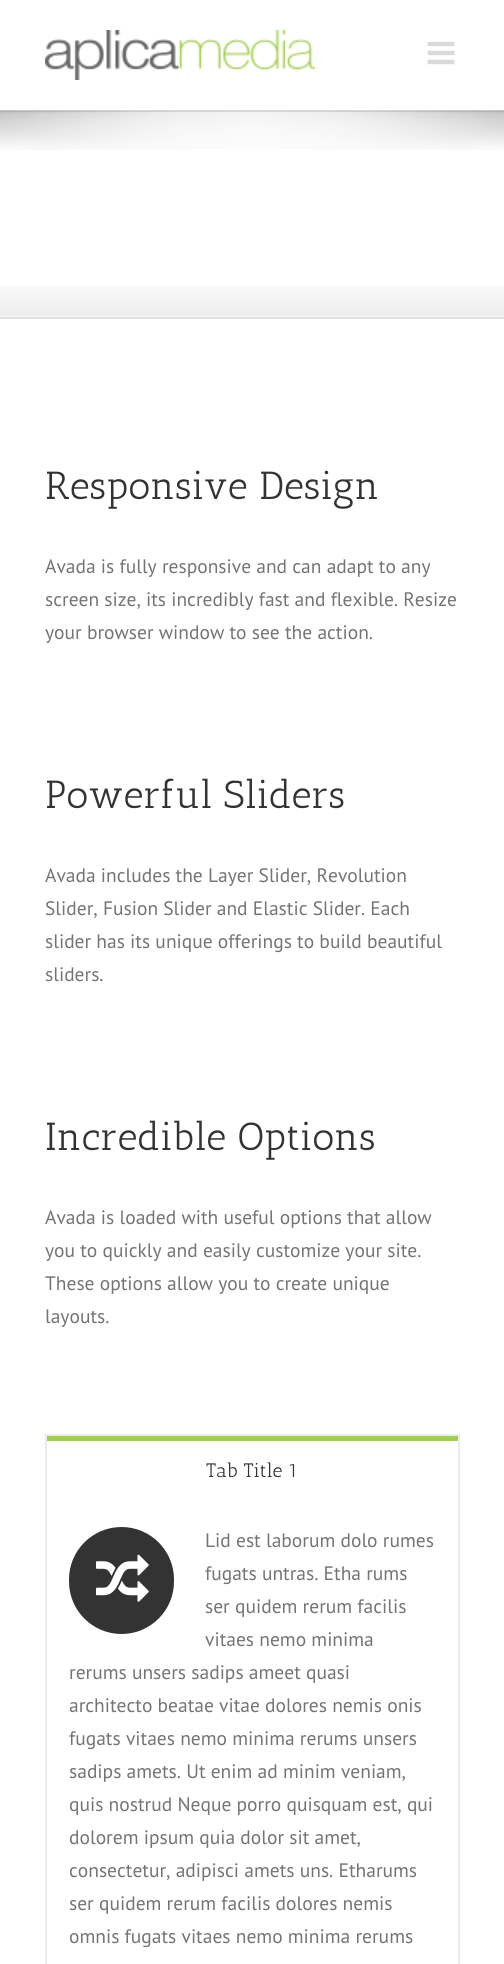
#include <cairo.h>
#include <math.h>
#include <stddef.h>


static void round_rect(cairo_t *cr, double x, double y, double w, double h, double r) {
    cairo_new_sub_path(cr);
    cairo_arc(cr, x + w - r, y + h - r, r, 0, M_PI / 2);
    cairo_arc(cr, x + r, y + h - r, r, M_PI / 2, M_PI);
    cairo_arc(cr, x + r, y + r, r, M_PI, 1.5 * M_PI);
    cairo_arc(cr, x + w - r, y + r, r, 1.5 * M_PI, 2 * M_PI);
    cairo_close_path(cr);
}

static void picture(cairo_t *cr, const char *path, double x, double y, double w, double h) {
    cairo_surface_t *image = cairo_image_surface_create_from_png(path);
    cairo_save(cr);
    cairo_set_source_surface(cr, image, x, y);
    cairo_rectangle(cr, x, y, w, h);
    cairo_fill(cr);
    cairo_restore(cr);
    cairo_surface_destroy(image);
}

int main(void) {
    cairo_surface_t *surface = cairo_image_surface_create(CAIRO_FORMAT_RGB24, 504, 1964);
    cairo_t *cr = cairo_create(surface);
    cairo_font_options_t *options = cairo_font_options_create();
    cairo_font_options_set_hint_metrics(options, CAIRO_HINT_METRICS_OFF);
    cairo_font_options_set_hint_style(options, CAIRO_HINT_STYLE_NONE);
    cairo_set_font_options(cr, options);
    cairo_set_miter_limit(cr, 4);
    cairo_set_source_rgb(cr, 1, 1, 1);
    cairo_paint(cr);
    picture(cr, "img1.png", 45, 30, 270, 50);
    picture(cr, "img2.png", 427, 41, 28, 24);
    cairo_set_source_rgb(cr, 0.878, 0.871, 0.871);
    cairo_rectangle(cr, 0, 110, 504, 2);
    cairo_fill(cr);
    cairo_rectangle(cr, 0, 317, 504, 2);
    cairo_fill(cr);
    picture(cr, "img3.png", 0, 110, 504, 40);
    picture(cr, "img4.png", 0, 286, 504, 31);
    cairo_select_font_face(cr, "Antic Slab", CAIRO_FONT_SLANT_NORMAL, CAIRO_FONT_WEIGHT_NORMAL);
    cairo_set_font_size(cr, 39.1);
    cairo_set_source_rgb(cr, 0.2, 0.2, 0.2);
    cairo_move_to(cr, 45, 499);
    cairo_show_text(cr, "Responsive Design");
    cairo_select_font_face(cr, "PT Sans", CAIRO_FONT_SLANT_NORMAL, CAIRO_FONT_WEIGHT_NORMAL);
    cairo_set_font_size(cr, 19.5);
    cairo_set_source_rgb(cr, 0.455, 0.455, 0.455);
    cairo_move_to(cr, 45, 573);
    cairo_show_text(cr, "Avada is fully responsive and can adapt to any");
    cairo_move_to(cr, 45, 606);
    cairo_show_text(cr, "screen size, its incredibly fast and flexible. Resize");
    cairo_move_to(cr, 45, 639);
    cairo_show_text(cr, "your browser window to see the action.");
    cairo_select_font_face(cr, "Antic Slab", CAIRO_FONT_SLANT_NORMAL, CAIRO_FONT_WEIGHT_NORMAL);
    cairo_set_font_size(cr, 39.1);
    cairo_set_source_rgb(cr, 0.2, 0.2, 0.2);
    cairo_move_to(cr, 45, 808);
    cairo_show_text(cr, "Powerful Sliders");
    cairo_select_font_face(cr, "PT Sans", CAIRO_FONT_SLANT_NORMAL, CAIRO_FONT_WEIGHT_NORMAL);
    cairo_set_font_size(cr, 19.5);
    cairo_set_source_rgb(cr, 0.455, 0.455, 0.455);
    cairo_move_to(cr, 45, 882);
    cairo_show_text(cr, "Avada includes the Layer Slider, Revolution");
    cairo_move_to(cr, 45, 915);
    cairo_show_text(cr, "Slider, Fusion Slider and Elastic Slider. Each");
    cairo_move_to(cr, 45, 948);
    cairo_show_text(cr, "slider has its unique offerings to build beautiful");
    cairo_move_to(cr, 45, 981);
    cairo_show_text(cr, "sliders.");
    cairo_select_font_face(cr, "Antic Slab", CAIRO_FONT_SLANT_NORMAL, CAIRO_FONT_WEIGHT_NORMAL);
    cairo_set_font_size(cr, 39.1);
    cairo_set_source_rgb(cr, 0.2, 0.2, 0.2);
    cairo_move_to(cr, 45, 1150);
    cairo_show_text(cr, "Incredible Options");
    cairo_select_font_face(cr, "PT Sans", CAIRO_FONT_SLANT_NORMAL, CAIRO_FONT_WEIGHT_NORMAL);
    cairo_set_font_size(cr, 19.5);
    cairo_set_source_rgb(cr, 0.455, 0.455, 0.455);
    cairo_move_to(cr, 45, 1224);
    cairo_show_text(cr, "Avada is loaded with useful options that allow");
    cairo_move_to(cr, 45, 1257);
    cairo_show_text(cr, "you to quickly and easily customize your site.");
    cairo_move_to(cr, 45, 1290);
    cairo_show_text(cr, "These options allow you to create unique");
    cairo_move_to(cr, 45, 1323);
    cairo_show_text(cr, "layouts.");
    cairo_set_source_rgb(cr, 0.922, 0.918, 0.918);
    cairo_rectangle(cr, 45, 1434, 414, 2);
    cairo_fill(cr);
    cairo_rectangle(cr, 458, 1434, 2, 530);
    cairo_fill(cr);
    cairo_rectangle(cr, 45, 1434, 2, 530);
    cairo_fill(cr);
    cairo_set_source_rgb(cr, 0.627, 0.808, 0.306);
    cairo_rectangle(cr, 47, 1436, 411, 5);
    cairo_fill(cr);
    cairo_select_font_face(cr, "Antic Slab", CAIRO_FONT_SLANT_NORMAL, CAIRO_FONT_WEIGHT_NORMAL);
    cairo_set_source_rgb(cr, 0.2, 0.2, 0.2);
    cairo_move_to(cr, 206, 1477);
    cairo_show_text(cr, "Tab Title 1");
    round_rect(cr, 70, 1528, 103, 105, 51.5);
    cairo_fill_preserve(cr);
    cairo_stroke(cr);
    picture(cr, "img5.png", 96, 1554, 53, 48);
    cairo_select_font_face(cr, "PT Sans", CAIRO_FONT_SLANT_NORMAL, CAIRO_FONT_WEIGHT_NORMAL);
    cairo_set_source_rgb(cr, 0.455, 0.455, 0.455);
    cairo_move_to(cr, 205, 1547);
    cairo_show_text(cr, "Lid est laborum dolo rumes");
    cairo_move_to(cr, 205, 1580);
    cairo_show_text(cr, "fugats untras. Etha rums");
    cairo_move_to(cr, 205, 1613);
    cairo_show_text(cr, "ser quidem rerum facilis");
    cairo_move_to(cr, 205, 1646);
    cairo_show_text(cr, "vitaes nemo minima");
    cairo_move_to(cr, 69, 1679);
    cairo_show_text(cr, "rerums unsers sadips ameet quasi");
    cairo_move_to(cr, 69, 1712);
    cairo_show_text(cr, "architecto beatae vitae dolores nemis onis");
    cairo_move_to(cr, 69, 1745);
    cairo_show_text(cr, "fugats vitaes nemo minima rerums unsers");
    cairo_move_to(cr, 69, 1778);
    cairo_show_text(cr, "sadips amets. Ut enim ad minim veniam,");
    cairo_move_to(cr, 69, 1811);
    cairo_show_text(cr, "quis nostrud Neque porro quisquam est, qui");
    cairo_move_to(cr, 69, 1844);
    cairo_show_text(cr, "dolorem ipsum quia dolor sit amet,");
    cairo_move_to(cr, 69, 1877);
    cairo_show_text(cr, "consectetur, adipisci amets uns. Etharums");
    cairo_move_to(cr, 69, 1910);
    cairo_show_text(cr, "ser quidem rerum facilis dolores nemis");
    cairo_move_to(cr, 69, 1943);
    cairo_show_text(cr, "omnis fugats vitaes nemo minima rerums");
    cairo_surface_write_to_png(surface, "page.png");
    cairo_font_options_destroy(options);
    cairo_destroy(cr);
    cairo_surface_destroy(surface);
    return 0;
}
